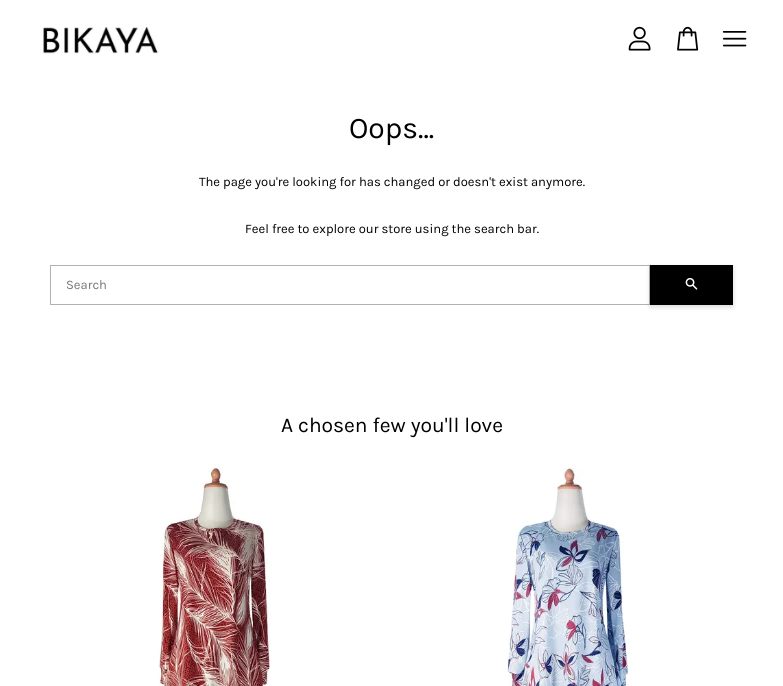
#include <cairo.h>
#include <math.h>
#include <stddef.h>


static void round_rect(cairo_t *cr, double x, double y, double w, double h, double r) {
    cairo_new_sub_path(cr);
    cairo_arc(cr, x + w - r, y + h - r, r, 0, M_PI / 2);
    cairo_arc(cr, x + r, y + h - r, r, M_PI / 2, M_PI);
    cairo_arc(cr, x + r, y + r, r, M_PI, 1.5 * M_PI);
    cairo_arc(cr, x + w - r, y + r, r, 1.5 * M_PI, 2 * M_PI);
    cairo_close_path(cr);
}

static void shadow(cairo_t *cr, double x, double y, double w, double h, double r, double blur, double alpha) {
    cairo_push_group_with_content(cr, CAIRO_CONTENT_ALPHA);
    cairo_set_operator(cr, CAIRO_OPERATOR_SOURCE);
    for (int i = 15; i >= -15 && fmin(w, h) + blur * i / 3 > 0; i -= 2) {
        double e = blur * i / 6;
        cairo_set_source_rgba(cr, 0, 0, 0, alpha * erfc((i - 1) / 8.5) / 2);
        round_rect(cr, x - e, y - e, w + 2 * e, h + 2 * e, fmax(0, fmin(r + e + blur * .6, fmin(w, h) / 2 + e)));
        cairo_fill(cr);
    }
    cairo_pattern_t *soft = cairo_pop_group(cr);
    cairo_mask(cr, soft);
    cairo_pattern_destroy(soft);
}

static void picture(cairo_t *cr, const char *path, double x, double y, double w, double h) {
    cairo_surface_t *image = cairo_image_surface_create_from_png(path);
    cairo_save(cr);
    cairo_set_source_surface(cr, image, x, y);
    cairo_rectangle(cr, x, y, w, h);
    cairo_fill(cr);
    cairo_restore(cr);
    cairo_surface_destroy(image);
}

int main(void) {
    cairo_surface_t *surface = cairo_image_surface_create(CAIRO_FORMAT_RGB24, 783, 686);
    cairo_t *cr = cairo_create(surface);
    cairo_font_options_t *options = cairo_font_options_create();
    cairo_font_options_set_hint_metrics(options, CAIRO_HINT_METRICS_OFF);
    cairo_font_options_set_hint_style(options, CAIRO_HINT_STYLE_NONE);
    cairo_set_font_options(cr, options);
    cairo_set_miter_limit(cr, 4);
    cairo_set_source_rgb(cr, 1, 1, 1);
    cairo_paint(cr);
    picture(cr, "img1.png", 43, 27, 116, 27);
    picture(cr, "img2.png", 628, 26, 23, 25);
    picture(cr, "img3.png", 677, 26, 22, 25);
    picture(cr, "img4.png", 722, 31, 25, 16);
    cairo_select_font_face(cr, "Karla", CAIRO_FONT_SLANT_NORMAL, CAIRO_FONT_WEIGHT_NORMAL);
    cairo_set_font_size(cr, 30);
    cairo_set_source_rgb(cr, 0, 0, 0);
    cairo_move_to(cr, 349, 138);
    cairo_show_text(cr, "Oops...");
    cairo_set_font_size(cr, 13);
    cairo_move_to(cr, 199, 186);
    cairo_show_text(cr, "The page you're looking for has changed or doesn't exist anymore.");
    cairo_move_to(cr, 245, 233);
    cairo_show_text(cr, "Feel free to explore our store using the search bar.");
    cairo_rectangle(cr, 50.5, 265.5, 599, 39);
    cairo_set_source_rgb(cr, 0.694, 0.694, 0.694);
    cairo_set_line_width(cr, 1);
    cairo_stroke(cr);
    cairo_set_source_rgb(cr, 0.459, 0.459, 0.459);
    cairo_move_to(cr, 66, 289);
    cairo_show_text(cr, "Search");
    cairo_set_source_rgb(cr, 0, 0, 0);
    shadow(cr, 650, 267, 83, 40, 0, 2.5, 0.15);
    cairo_set_source_rgb(cr, 0, 0, 0);
    cairo_rectangle(cr, 650, 265, 83, 40);
    cairo_fill(cr);
    picture(cr, "img5.png", 685, 278, 13, 12);
    cairo_set_font_size(cr, 21);
    cairo_move_to(cr, 281, 432);
    cairo_show_text(cr, "A chosen few you'll love");
    picture(cr, "img6.png", 157, 468, 114, 218);
    picture(cr, "img7.png", 507, 468, 122, 218);
    cairo_surface_write_to_png(surface, "page.png");
    cairo_font_options_destroy(options);
    cairo_destroy(cr);
    cairo_surface_destroy(surface);
    return 0;
}
